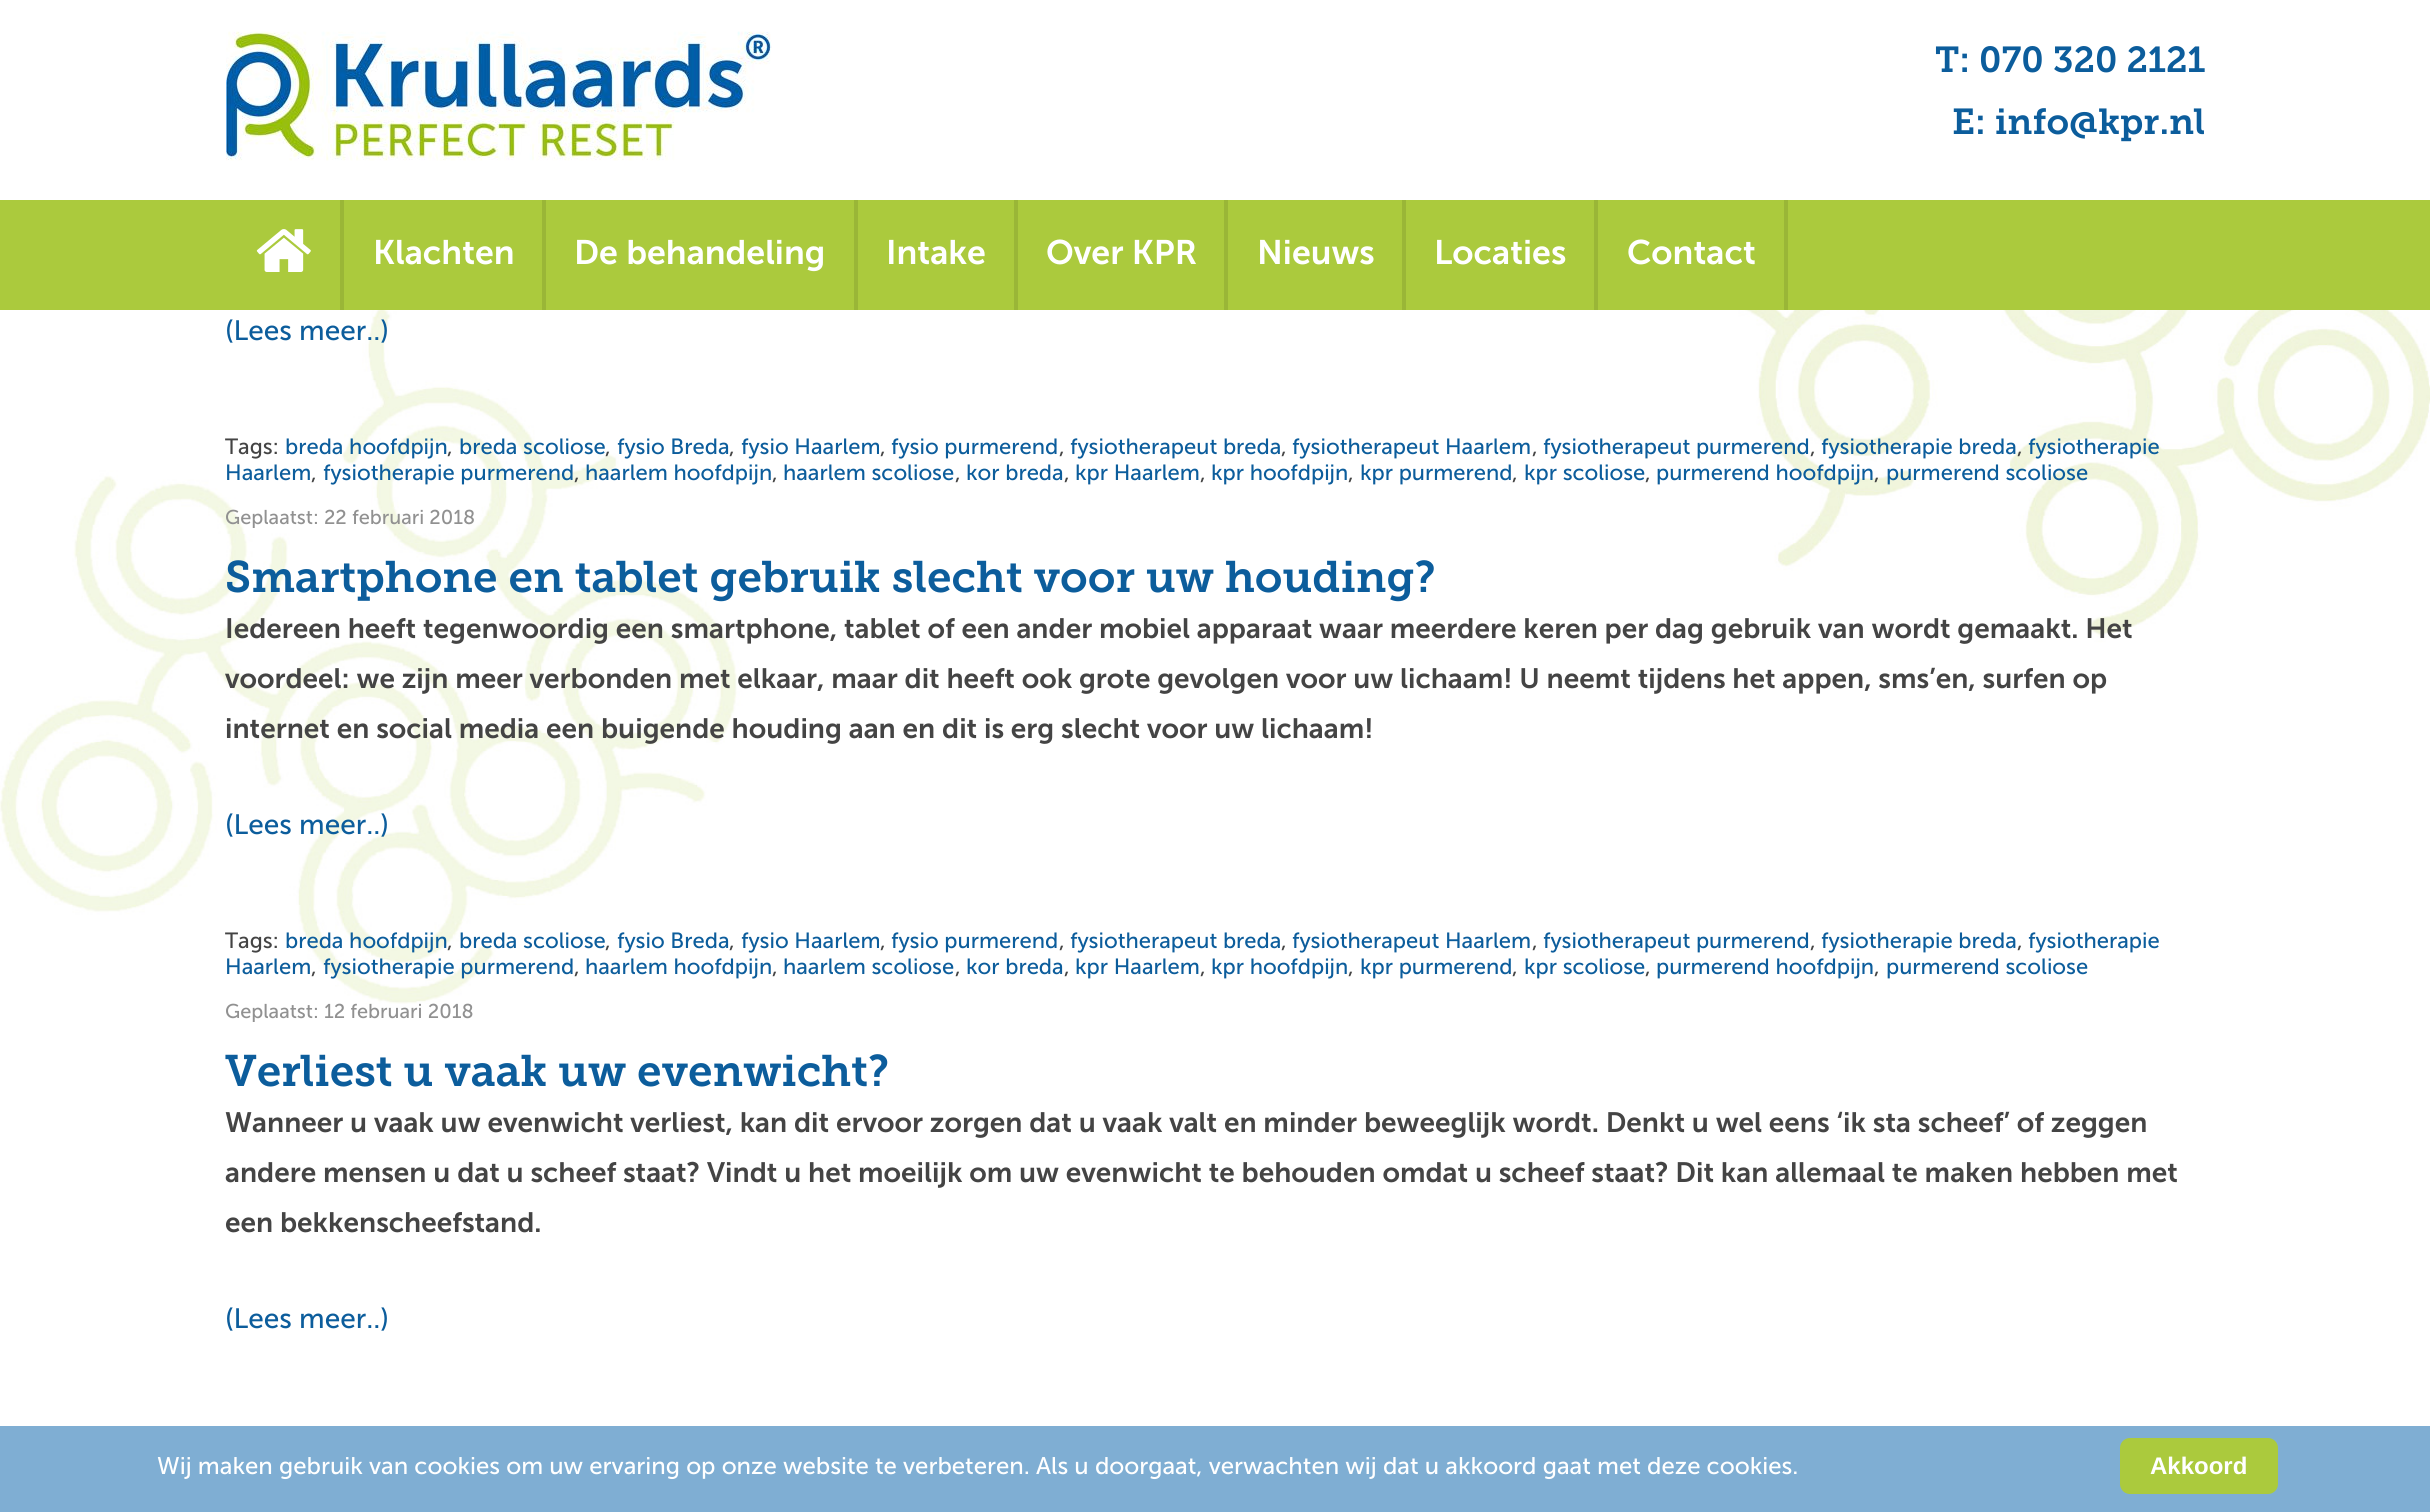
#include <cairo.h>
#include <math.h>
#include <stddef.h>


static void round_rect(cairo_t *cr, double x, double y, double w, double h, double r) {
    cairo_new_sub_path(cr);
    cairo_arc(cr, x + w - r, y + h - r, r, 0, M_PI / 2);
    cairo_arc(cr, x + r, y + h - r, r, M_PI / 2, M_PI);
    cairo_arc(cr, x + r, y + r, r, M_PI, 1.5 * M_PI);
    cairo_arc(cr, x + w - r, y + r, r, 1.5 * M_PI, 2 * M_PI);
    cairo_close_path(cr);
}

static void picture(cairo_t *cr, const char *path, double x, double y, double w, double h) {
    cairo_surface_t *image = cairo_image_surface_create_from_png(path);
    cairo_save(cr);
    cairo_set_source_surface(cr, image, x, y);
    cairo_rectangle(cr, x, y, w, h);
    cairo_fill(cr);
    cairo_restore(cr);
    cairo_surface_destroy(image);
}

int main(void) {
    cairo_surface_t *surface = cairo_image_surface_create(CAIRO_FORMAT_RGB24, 2430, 1512);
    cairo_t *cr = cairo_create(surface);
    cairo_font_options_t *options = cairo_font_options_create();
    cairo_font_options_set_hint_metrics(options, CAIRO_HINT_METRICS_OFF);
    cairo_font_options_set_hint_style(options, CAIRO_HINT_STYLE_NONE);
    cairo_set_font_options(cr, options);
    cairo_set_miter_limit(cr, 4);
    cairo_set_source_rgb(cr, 1, 1, 1);
    cairo_paint(cr);
    picture(cr, "img1.png", 0, 310, 2430, 694);
    picture(cr, "img2.png", 226, 31, 546, 130);
    cairo_select_font_face(cr, "Museo Slab", CAIRO_FONT_SLANT_NORMAL, CAIRO_FONT_WEIGHT_NORMAL);
    cairo_set_font_size(cr, 36);
    cairo_set_source_rgb(cr, 0.047, 0.365, 0.612);
    cairo_move_to(cr, 1935, 72);
    cairo_show_text(cr, "T: 070 320 2121");
    cairo_move_to(cr, 1952, 134);
    cairo_show_text(cr, "E: info@kpr.nl");
    cairo_set_source_rgb(cr, 0.671, 0.792, 0.239);
    cairo_rectangle(cr, 0, 200, 2430, 110);
    cairo_fill(cr);
    cairo_set_source_rgb(cr, 0.604, 0.714, 0.216);
    cairo_rectangle(cr, 340, 200, 4, 110);
    cairo_fill(cr);
    picture(cr, "img3.png", 256, 229, 55, 43);
    cairo_rectangle(cr, 542, 200, 4, 110);
    cairo_fill(cr);
    cairo_select_font_face(cr, "Museo Sans SemiBold", CAIRO_FONT_SLANT_NORMAL, CAIRO_FONT_WEIGHT_NORMAL);
    cairo_set_font_size(cr, 34);
    cairo_set_source_rgb(cr, 1, 1, 1);
    cairo_move_to(cr, 373, 264);
    cairo_show_text(cr, "Klachten");
    cairo_set_source_rgb(cr, 0.604, 0.714, 0.216);
    cairo_rectangle(cr, 854, 200, 4, 110);
    cairo_fill(cr);
    cairo_set_source_rgb(cr, 1, 1, 1);
    cairo_move_to(cr, 574, 264);
    cairo_show_text(cr, "De behandeling");
    cairo_set_source_rgb(cr, 0.604, 0.714, 0.216);
    cairo_rectangle(cr, 1014, 200, 4, 110);
    cairo_fill(cr);
    cairo_set_source_rgb(cr, 1, 1, 1);
    cairo_move_to(cr, 886, 264);
    cairo_show_text(cr, "Intake");
    cairo_set_source_rgb(cr, 0.604, 0.714, 0.216);
    cairo_rectangle(cr, 1224, 200, 4, 110);
    cairo_fill(cr);
    cairo_set_source_rgb(cr, 1, 1, 1);
    cairo_move_to(cr, 1046, 264);
    cairo_show_text(cr, "Over KPR");
    cairo_set_source_rgb(cr, 0.604, 0.714, 0.216);
    cairo_rectangle(cr, 1402, 200, 4, 110);
    cairo_fill(cr);
    cairo_set_source_rgb(cr, 1, 1, 1);
    cairo_move_to(cr, 1257, 264);
    cairo_show_text(cr, "Nieuws");
    cairo_set_source_rgb(cr, 0.604, 0.714, 0.216);
    cairo_rectangle(cr, 1594, 200, 4, 110);
    cairo_fill(cr);
    cairo_set_source_rgb(cr, 1, 1, 1);
    cairo_move_to(cr, 1434, 264);
    cairo_show_text(cr, "Locaties");
    cairo_set_source_rgb(cr, 0.604, 0.714, 0.216);
    cairo_rectangle(cr, 1784, 200, 4, 110);
    cairo_fill(cr);
    cairo_set_source_rgb(cr, 1, 1, 1);
    cairo_move_to(cr, 1627, 264);
    cairo_show_text(cr, "Contact");
    cairo_select_font_face(cr, "Museo Sans", CAIRO_FONT_SLANT_NORMAL, CAIRO_FONT_WEIGHT_NORMAL);
    cairo_set_font_size(cr, 28);
    cairo_set_source_rgb(cr, 0.047, 0.365, 0.612);
    cairo_move_to(cr, 225, 340);
    cairo_show_text(cr, "(Lees meer..)");
    cairo_set_font_size(cr, 22);
    cairo_set_source_rgb(cr, 0.267, 0.267, 0.267);
    cairo_move_to(cr, 225, 454);
    cairo_show_text(cr, "Tags:");
    cairo_set_source_rgb(cr, 0.047, 0.365, 0.612);
    cairo_move_to(cr, 285, 454);
    cairo_show_text(cr, "breda hoofdpijn");
    cairo_set_source_rgb(cr, 0.267, 0.267, 0.267);
    cairo_move_to(cr, 447, 454);
    cairo_show_text(cr, ",");
    cairo_set_source_rgb(cr, 0.047, 0.365, 0.612);
    cairo_move_to(cr, 459, 454);
    cairo_show_text(cr, "breda scoliose");
    cairo_set_source_rgb(cr, 0.267, 0.267, 0.267);
    cairo_move_to(cr, 605, 454);
    cairo_show_text(cr, ",");
    cairo_set_source_rgb(cr, 0.047, 0.365, 0.612);
    cairo_move_to(cr, 617, 454);
    cairo_show_text(cr, "fysio Breda");
    cairo_set_source_rgb(cr, 0.267, 0.267, 0.267);
    cairo_move_to(cr, 729, 454);
    cairo_show_text(cr, ",");
    cairo_set_source_rgb(cr, 0.047, 0.365, 0.612);
    cairo_move_to(cr, 741, 454);
    cairo_show_text(cr, "fysio Haarlem");
    cairo_set_source_rgb(cr, 0.267, 0.267, 0.267);
    cairo_move_to(cr, 880, 454);
    cairo_show_text(cr, ",");
    cairo_set_source_rgb(cr, 0.047, 0.365, 0.612);
    cairo_move_to(cr, 891, 454);
    cairo_show_text(cr, "fysio purmerend");
    cairo_set_source_rgb(cr, 0.267, 0.267, 0.267);
    cairo_move_to(cr, 1059, 454);
    cairo_show_text(cr, ",");
    cairo_set_source_rgb(cr, 0.047, 0.365, 0.612);
    cairo_move_to(cr, 1070, 454);
    cairo_show_text(cr, "fysiotherapeut breda");
    cairo_set_source_rgb(cr, 0.267, 0.267, 0.267);
    cairo_move_to(cr, 1281, 454);
    cairo_show_text(cr, ",");
    cairo_set_source_rgb(cr, 0.047, 0.365, 0.612);
    cairo_move_to(cr, 1292, 454);
    cairo_show_text(cr, "fysiotherapeut Haarlem");
    cairo_set_source_rgb(cr, 0.267, 0.267, 0.267);
    cairo_move_to(cr, 1532, 454);
    cairo_show_text(cr, ",");
    cairo_set_source_rgb(cr, 0.047, 0.365, 0.612);
    cairo_move_to(cr, 1543, 454);
    cairo_show_text(cr, "fysiotherapeut purmerend");
    cairo_set_source_rgb(cr, 0.267, 0.267, 0.267);
    cairo_move_to(cr, 1810, 454);
    cairo_show_text(cr, ",");
    cairo_set_source_rgb(cr, 0.047, 0.365, 0.612);
    cairo_move_to(cr, 1821, 454);
    cairo_show_text(cr, "fysiotherapie breda");
    cairo_set_source_rgb(cr, 0.267, 0.267, 0.267);
    cairo_move_to(cr, 2017, 454);
    cairo_show_text(cr, ",");
    cairo_set_source_rgb(cr, 0.047, 0.365, 0.612);
    cairo_move_to(cr, 2028, 454);
    cairo_show_text(cr, "fysiotherapie");
    cairo_move_to(cr, 225, 480);
    cairo_show_text(cr, "Haarlem");
    cairo_set_source_rgb(cr, 0.267, 0.267, 0.267);
    cairo_move_to(cr, 311, 480);
    cairo_show_text(cr, ",");
    cairo_set_source_rgb(cr, 0.047, 0.365, 0.612);
    cairo_move_to(cr, 323, 480);
    cairo_show_text(cr, "fysiotherapie purmerend");
    cairo_set_source_rgb(cr, 0.267, 0.267, 0.267);
    cairo_move_to(cr, 574, 480);
    cairo_show_text(cr, ",");
    cairo_set_source_rgb(cr, 0.047, 0.365, 0.612);
    cairo_move_to(cr, 585, 480);
    cairo_show_text(cr, "haarlem hoofdpijn");
    cairo_set_source_rgb(cr, 0.267, 0.267, 0.267);
    cairo_move_to(cr, 772, 480);
    cairo_show_text(cr, ",");
    cairo_set_source_rgb(cr, 0.047, 0.365, 0.612);
    cairo_move_to(cr, 783, 480);
    cairo_show_text(cr, "haarlem scoliose");
    cairo_set_source_rgb(cr, 0.267, 0.267, 0.267);
    cairo_move_to(cr, 955, 480);
    cairo_show_text(cr, ",");
    cairo_set_source_rgb(cr, 0.047, 0.365, 0.612);
    cairo_move_to(cr, 966, 480);
    cairo_show_text(cr, "kor breda");
    cairo_set_source_rgb(cr, 0.267, 0.267, 0.267);
    cairo_move_to(cr, 1064, 480);
    cairo_show_text(cr, ",");
    cairo_set_source_rgb(cr, 0.047, 0.365, 0.612);
    cairo_move_to(cr, 1075, 480);
    cairo_show_text(cr, "kpr Haarlem");
    cairo_set_source_rgb(cr, 0.267, 0.267, 0.267);
    cairo_move_to(cr, 1200, 480);
    cairo_show_text(cr, ",");
    cairo_set_source_rgb(cr, 0.047, 0.365, 0.612);
    cairo_move_to(cr, 1211, 480);
    cairo_show_text(cr, "kpr hoofdpijn");
    cairo_set_source_rgb(cr, 0.267, 0.267, 0.267);
    cairo_move_to(cr, 1348, 480);
    cairo_show_text(cr, ",");
    cairo_set_source_rgb(cr, 0.047, 0.365, 0.612);
    cairo_move_to(cr, 1360, 480);
    cairo_show_text(cr, "kpr purmerend");
    cairo_set_source_rgb(cr, 0.267, 0.267, 0.267);
    cairo_move_to(cr, 1512, 480);
    cairo_show_text(cr, ",");
    cairo_set_source_rgb(cr, 0.047, 0.365, 0.612);
    cairo_move_to(cr, 1524, 480);
    cairo_show_text(cr, "kpr scoliose");
    cairo_set_source_rgb(cr, 0.267, 0.267, 0.267);
    cairo_move_to(cr, 1645, 480);
    cairo_show_text(cr, ",");
    cairo_set_source_rgb(cr, 0.047, 0.365, 0.612);
    cairo_move_to(cr, 1656, 480);
    cairo_show_text(cr, "purmerend hoofdpijn");
    cairo_set_source_rgb(cr, 0.267, 0.267, 0.267);
    cairo_move_to(cr, 1874, 480);
    cairo_show_text(cr, ",");
    cairo_set_source_rgb(cr, 0.047, 0.365, 0.612);
    cairo_move_to(cr, 1886, 480);
    cairo_show_text(cr, "purmerend scoliose");
    cairo_set_font_size(cr, 20);
    cairo_set_source_rgb(cr, 0.569, 0.569, 0.569);
    cairo_move_to(cr, 225, 524);
    cairo_show_text(cr, "Geplaatst: 22 februari 2018");
    cairo_select_font_face(cr, "Museo Slab", CAIRO_FONT_SLANT_NORMAL, CAIRO_FONT_WEIGHT_NORMAL);
    cairo_set_font_size(cr, 44);
    cairo_set_source_rgb(cr, 0.047, 0.365, 0.612);
    cairo_move_to(cr, 225, 592);
    cairo_show_text(cr, "Smartphone en tablet gebruik slecht voor uw houding?");
    cairo_select_font_face(cr, "Museo Sans SemiBold", CAIRO_FONT_SLANT_NORMAL, CAIRO_FONT_WEIGHT_NORMAL);
    cairo_set_font_size(cr, 28);
    cairo_set_source_rgb(cr, 0.267, 0.267, 0.267);
    cairo_move_to(cr, 225, 638);
    cairo_show_text(cr, "Iedereen heeft tegenwoordig een smartphone, tablet of een ander mobiel apparaat waar meerdere keren per dag gebruik van wordt gemaakt. Het");
    cairo_move_to(cr, 225, 688);
    cairo_show_text(cr, "voordeel: we zijn meer verbonden met elkaar, maar dit heeft ook grote gevolgen voor uw lichaam! U neemt tijdens het appen, sms’en, surfen op");
    cairo_move_to(cr, 225, 738);
    cairo_show_text(cr, "internet en social media een buigende houding aan en dit is erg slecht voor uw lichaam!");
    cairo_select_font_face(cr, "Museo Sans", CAIRO_FONT_SLANT_NORMAL, CAIRO_FONT_WEIGHT_NORMAL);
    cairo_set_source_rgb(cr, 0.047, 0.365, 0.612);
    cairo_move_to(cr, 225, 834);
    cairo_show_text(cr, "(Lees meer..)");
    cairo_set_font_size(cr, 22);
    cairo_set_source_rgb(cr, 0.267, 0.267, 0.267);
    cairo_move_to(cr, 225, 948);
    cairo_show_text(cr, "Tags:");
    cairo_set_source_rgb(cr, 0.047, 0.365, 0.612);
    cairo_move_to(cr, 285, 948);
    cairo_show_text(cr, "breda hoofdpijn");
    cairo_set_source_rgb(cr, 0.267, 0.267, 0.267);
    cairo_move_to(cr, 447, 948);
    cairo_show_text(cr, ",");
    cairo_set_source_rgb(cr, 0.047, 0.365, 0.612);
    cairo_move_to(cr, 459, 948);
    cairo_show_text(cr, "breda scoliose");
    cairo_set_source_rgb(cr, 0.267, 0.267, 0.267);
    cairo_move_to(cr, 605, 948);
    cairo_show_text(cr, ",");
    cairo_set_source_rgb(cr, 0.047, 0.365, 0.612);
    cairo_move_to(cr, 617, 948);
    cairo_show_text(cr, "fysio Breda");
    cairo_set_source_rgb(cr, 0.267, 0.267, 0.267);
    cairo_move_to(cr, 729, 948);
    cairo_show_text(cr, ",");
    cairo_set_source_rgb(cr, 0.047, 0.365, 0.612);
    cairo_move_to(cr, 741, 948);
    cairo_show_text(cr, "fysio Haarlem");
    cairo_set_source_rgb(cr, 0.267, 0.267, 0.267);
    cairo_move_to(cr, 880, 948);
    cairo_show_text(cr, ",");
    cairo_set_source_rgb(cr, 0.047, 0.365, 0.612);
    cairo_move_to(cr, 891, 948);
    cairo_show_text(cr, "fysio purmerend");
    cairo_set_source_rgb(cr, 0.267, 0.267, 0.267);
    cairo_move_to(cr, 1059, 948);
    cairo_show_text(cr, ",");
    cairo_set_source_rgb(cr, 0.047, 0.365, 0.612);
    cairo_move_to(cr, 1070, 948);
    cairo_show_text(cr, "fysiotherapeut breda");
    cairo_set_source_rgb(cr, 0.267, 0.267, 0.267);
    cairo_move_to(cr, 1281, 948);
    cairo_show_text(cr, ",");
    cairo_set_source_rgb(cr, 0.047, 0.365, 0.612);
    cairo_move_to(cr, 1292, 948);
    cairo_show_text(cr, "fysiotherapeut Haarlem");
    cairo_set_source_rgb(cr, 0.267, 0.267, 0.267);
    cairo_move_to(cr, 1532, 948);
    cairo_show_text(cr, ",");
    cairo_set_source_rgb(cr, 0.047, 0.365, 0.612);
    cairo_move_to(cr, 1543, 948);
    cairo_show_text(cr, "fysiotherapeut purmerend");
    cairo_set_source_rgb(cr, 0.267, 0.267, 0.267);
    cairo_move_to(cr, 1810, 948);
    cairo_show_text(cr, ",");
    cairo_set_source_rgb(cr, 0.047, 0.365, 0.612);
    cairo_move_to(cr, 1821, 948);
    cairo_show_text(cr, "fysiotherapie breda");
    cairo_set_source_rgb(cr, 0.267, 0.267, 0.267);
    cairo_move_to(cr, 2017, 948);
    cairo_show_text(cr, ",");
    cairo_set_source_rgb(cr, 0.047, 0.365, 0.612);
    cairo_move_to(cr, 2028, 948);
    cairo_show_text(cr, "fysiotherapie");
    cairo_move_to(cr, 225, 974);
    cairo_show_text(cr, "Haarlem");
    cairo_set_source_rgb(cr, 0.267, 0.267, 0.267);
    cairo_move_to(cr, 311, 974);
    cairo_show_text(cr, ",");
    cairo_set_source_rgb(cr, 0.047, 0.365, 0.612);
    cairo_move_to(cr, 323, 974);
    cairo_show_text(cr, "fysiotherapie purmerend");
    cairo_set_source_rgb(cr, 0.267, 0.267, 0.267);
    cairo_move_to(cr, 574, 974);
    cairo_show_text(cr, ",");
    cairo_set_source_rgb(cr, 0.047, 0.365, 0.612);
    cairo_move_to(cr, 585, 974);
    cairo_show_text(cr, "haarlem hoofdpijn");
    cairo_set_source_rgb(cr, 0.267, 0.267, 0.267);
    cairo_move_to(cr, 772, 974);
    cairo_show_text(cr, ",");
    cairo_set_source_rgb(cr, 0.047, 0.365, 0.612);
    cairo_move_to(cr, 783, 974);
    cairo_show_text(cr, "haarlem scoliose");
    cairo_set_source_rgb(cr, 0.267, 0.267, 0.267);
    cairo_move_to(cr, 955, 974);
    cairo_show_text(cr, ",");
    cairo_set_source_rgb(cr, 0.047, 0.365, 0.612);
    cairo_move_to(cr, 966, 974);
    cairo_show_text(cr, "kor breda");
    cairo_set_source_rgb(cr, 0.267, 0.267, 0.267);
    cairo_move_to(cr, 1064, 974);
    cairo_show_text(cr, ",");
    cairo_set_source_rgb(cr, 0.047, 0.365, 0.612);
    cairo_move_to(cr, 1075, 974);
    cairo_show_text(cr, "kpr Haarlem");
    cairo_set_source_rgb(cr, 0.267, 0.267, 0.267);
    cairo_move_to(cr, 1200, 974);
    cairo_show_text(cr, ",");
    cairo_set_source_rgb(cr, 0.047, 0.365, 0.612);
    cairo_move_to(cr, 1211, 974);
    cairo_show_text(cr, "kpr hoofdpijn");
    cairo_set_source_rgb(cr, 0.267, 0.267, 0.267);
    cairo_move_to(cr, 1348, 974);
    cairo_show_text(cr, ",");
    cairo_set_source_rgb(cr, 0.047, 0.365, 0.612);
    cairo_move_to(cr, 1360, 974);
    cairo_show_text(cr, "kpr purmerend");
    cairo_set_source_rgb(cr, 0.267, 0.267, 0.267);
    cairo_move_to(cr, 1512, 974);
    cairo_show_text(cr, ",");
    cairo_set_source_rgb(cr, 0.047, 0.365, 0.612);
    cairo_move_to(cr, 1524, 974);
    cairo_show_text(cr, "kpr scoliose");
    cairo_set_source_rgb(cr, 0.267, 0.267, 0.267);
    cairo_move_to(cr, 1645, 974);
    cairo_show_text(cr, ",");
    cairo_set_source_rgb(cr, 0.047, 0.365, 0.612);
    cairo_move_to(cr, 1656, 974);
    cairo_show_text(cr, "purmerend hoofdpijn");
    cairo_set_source_rgb(cr, 0.267, 0.267, 0.267);
    cairo_move_to(cr, 1874, 974);
    cairo_show_text(cr, ",");
    cairo_set_source_rgb(cr, 0.047, 0.365, 0.612);
    cairo_move_to(cr, 1886, 974);
    cairo_show_text(cr, "purmerend scoliose");
    cairo_set_font_size(cr, 20);
    cairo_set_source_rgb(cr, 0.569, 0.569, 0.569);
    cairo_move_to(cr, 225, 1018);
    cairo_show_text(cr, "Geplaatst: 12 februari 2018");
    cairo_select_font_face(cr, "Museo Slab", CAIRO_FONT_SLANT_NORMAL, CAIRO_FONT_WEIGHT_NORMAL);
    cairo_set_font_size(cr, 44);
    cairo_set_source_rgb(cr, 0.047, 0.365, 0.612);
    cairo_move_to(cr, 225, 1086);
    cairo_show_text(cr, "Verliest u vaak uw evenwicht?");
    cairo_select_font_face(cr, "Museo Sans SemiBold", CAIRO_FONT_SLANT_NORMAL, CAIRO_FONT_WEIGHT_NORMAL);
    cairo_set_font_size(cr, 28);
    cairo_set_source_rgb(cr, 0.267, 0.267, 0.267);
    cairo_move_to(cr, 225, 1132);
    cairo_show_text(cr, "Wanneer u vaak uw evenwicht verliest, kan dit ervoor zorgen dat u vaak valt en minder beweeglijk wordt. Denkt u wel eens ‘ik sta scheef’ of zeggen");
    cairo_move_to(cr, 225, 1182);
    cairo_show_text(cr, "andere mensen u dat u scheef staat? Vindt u het moeilijk om uw evenwicht te behouden omdat u scheef staat? Dit kan allemaal te maken hebben met");
    cairo_move_to(cr, 225, 1232);
    cairo_show_text(cr, "een bekkenscheefstand.");
    cairo_select_font_face(cr, "Museo Sans", CAIRO_FONT_SLANT_NORMAL, CAIRO_FONT_WEIGHT_NORMAL);
    cairo_set_source_rgb(cr, 0.047, 0.365, 0.612);
    cairo_move_to(cr, 225, 1328);
    cairo_show_text(cr, "(Lees meer..)");
    cairo_set_source_rgb(cr, 0.498, 0.682, 0.827);
    cairo_rectangle(cr, 0, 1426, 2430, 86);
    cairo_fill(cr);
    cairo_set_font_size(cr, 24);
    cairo_set_source_rgb(cr, 1, 1, 1);
    cairo_move_to(cr, 157, 1474);
    cairo_show_text(cr, "Wij maken gebruik van cookies om uw ervaring op onze website te verbeteren. Als u doorgaat, verwachten wij dat u akkoord gaat met deze cookies.");
    cairo_set_source_rgb(cr, 0.671, 0.792, 0.239);
    round_rect(cr, 2122, 1440, 154, 52, 8);
    cairo_fill_preserve(cr);
    cairo_set_line_width(cr, 4);
    cairo_stroke(cr);
    cairo_select_font_face(cr, "Liberation Sans", CAIRO_FONT_SLANT_NORMAL, CAIRO_FONT_WEIGHT_BOLD);
    cairo_set_source_rgb(cr, 1, 1, 1);
    cairo_move_to(cr, 2150, 1474);
    cairo_show_text(cr, "Akkoord");
    cairo_surface_write_to_png(surface, "page.png");
    cairo_font_options_destroy(options);
    cairo_destroy(cr);
    cairo_surface_destroy(surface);
    return 0;
}
